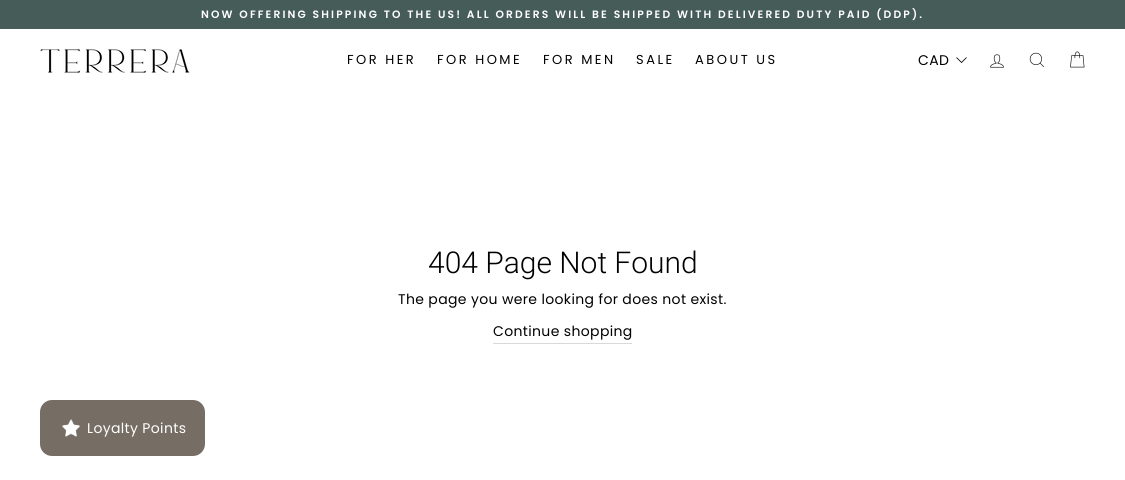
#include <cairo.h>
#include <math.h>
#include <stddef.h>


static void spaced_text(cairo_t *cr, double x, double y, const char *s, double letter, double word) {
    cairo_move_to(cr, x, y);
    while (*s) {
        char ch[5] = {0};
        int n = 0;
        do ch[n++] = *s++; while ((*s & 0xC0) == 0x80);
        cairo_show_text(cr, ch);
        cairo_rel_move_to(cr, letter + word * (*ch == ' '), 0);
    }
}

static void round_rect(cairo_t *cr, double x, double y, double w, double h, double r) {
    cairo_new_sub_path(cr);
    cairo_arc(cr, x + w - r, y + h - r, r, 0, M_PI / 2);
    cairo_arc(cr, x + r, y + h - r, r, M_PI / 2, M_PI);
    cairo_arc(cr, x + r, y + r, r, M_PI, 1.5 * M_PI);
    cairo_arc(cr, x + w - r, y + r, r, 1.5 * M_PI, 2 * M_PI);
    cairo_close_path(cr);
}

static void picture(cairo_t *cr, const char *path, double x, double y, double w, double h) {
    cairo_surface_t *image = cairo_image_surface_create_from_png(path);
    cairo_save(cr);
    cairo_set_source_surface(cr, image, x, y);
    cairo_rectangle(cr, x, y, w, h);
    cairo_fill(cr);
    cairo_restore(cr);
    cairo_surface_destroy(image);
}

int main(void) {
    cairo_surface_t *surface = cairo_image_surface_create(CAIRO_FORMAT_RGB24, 1125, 480);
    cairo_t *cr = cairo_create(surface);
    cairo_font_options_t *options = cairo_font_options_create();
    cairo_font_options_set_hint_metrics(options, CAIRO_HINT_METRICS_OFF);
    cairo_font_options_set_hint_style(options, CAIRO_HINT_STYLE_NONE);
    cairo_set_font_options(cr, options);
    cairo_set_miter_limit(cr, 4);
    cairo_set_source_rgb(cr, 1, 1, 1);
    cairo_paint(cr);
    cairo_set_source_rgb(cr, 0.271, 0.361, 0.345);
    cairo_rectangle(cr, 0, 0, 1125, 29);
    cairo_fill(cr);
    cairo_select_font_face(cr, "Poppins SemiBold", CAIRO_FONT_SLANT_NORMAL, CAIRO_FONT_WEIGHT_NORMAL);
    cairo_set_font_size(cr, 10.7);
    cairo_set_source_rgb(cr, 1, 1, 1);
    spaced_text(cr, 201, 18, "NOW OFFERING SHIPPING TO THE US! ALL ORDERS WILL BE SHIPPED WITH DELIVERED DUTY PAID (DDP).", 2.15, 0);
    picture(cr, "img1.png", 40, 49, 150, 24);
    cairo_select_font_face(cr, "Poppins", CAIRO_FONT_SLANT_NORMAL, CAIRO_FONT_WEIGHT_NORMAL);
    cairo_set_font_size(cr, 13);
    cairo_set_source_rgb(cr, 0, 0, 0);
    spaced_text(cr, 347, 64, "FOR HER", 2.5, 0);
    spaced_text(cr, 437, 64, "FOR HOME", 2.5, 0);
    spaced_text(cr, 543, 64, "FOR MEN", 2.5, 0);
    spaced_text(cr, 636, 64, "SALE", 2.5, 0);
    spaced_text(cr, 695, 64, "ABOUT US", 2.5, 0);
    cairo_set_font_size(cr, 14);
    spaced_text(cr, 918, 65, "CAD", 0.35, 0);
    cairo_new_path(cr);
    cairo_move_to(cr, 956.5, 57.5);
    cairo_line_to(cr, 961.5, 62.5);
    cairo_line_to(cr, 966.5, 57.5);
    cairo_set_line_width(cr, 0.8);
    cairo_stroke(cr);
    picture(cr, "img2.png", 990, 54, 14, 14);
    picture(cr, "img3.png", 1029, 52, 15, 15);
    picture(cr, "img4.png", 1070, 51, 15, 17);
    cairo_select_font_face(cr, "Roboto Light", CAIRO_FONT_SLANT_NORMAL, CAIRO_FONT_WEIGHT_NORMAL);
    cairo_set_font_size(cr, 30);
    cairo_move_to(cr, 428, 273);
    cairo_show_text(cr, "404 Page Not Found");
    cairo_select_font_face(cr, "Poppins", CAIRO_FONT_SLANT_NORMAL, CAIRO_FONT_WEIGHT_NORMAL);
    cairo_set_font_size(cr, 14);
    spaced_text(cr, 398, 304, "The page you were looking for does not exist.", 0.35, 0);
    cairo_set_source_rgb(cr, 0.851, 0.851, 0.851);
    cairo_rectangle(cr, 493, 343, 139, 1);
    cairo_fill(cr);
    cairo_set_source_rgb(cr, 0, 0, 0);
    spaced_text(cr, 493, 336, "Continue shopping", 0.35, 0);
    cairo_set_source_rgb(cr, 0.463, 0.431, 0.396);
    round_rect(cr, 40, 400, 165, 56, 12);
    cairo_fill(cr);
    picture(cr, "img5.png", 62, 419, 18, 18);
    cairo_set_source_rgb(cr, 1, 1, 1);
    spaced_text(cr, 87, 433, "Loyalty Points", 0.35, 0);
    cairo_surface_write_to_png(surface, "page.png");
    cairo_font_options_destroy(options);
    cairo_destroy(cr);
    cairo_surface_destroy(surface);
    return 0;
}
